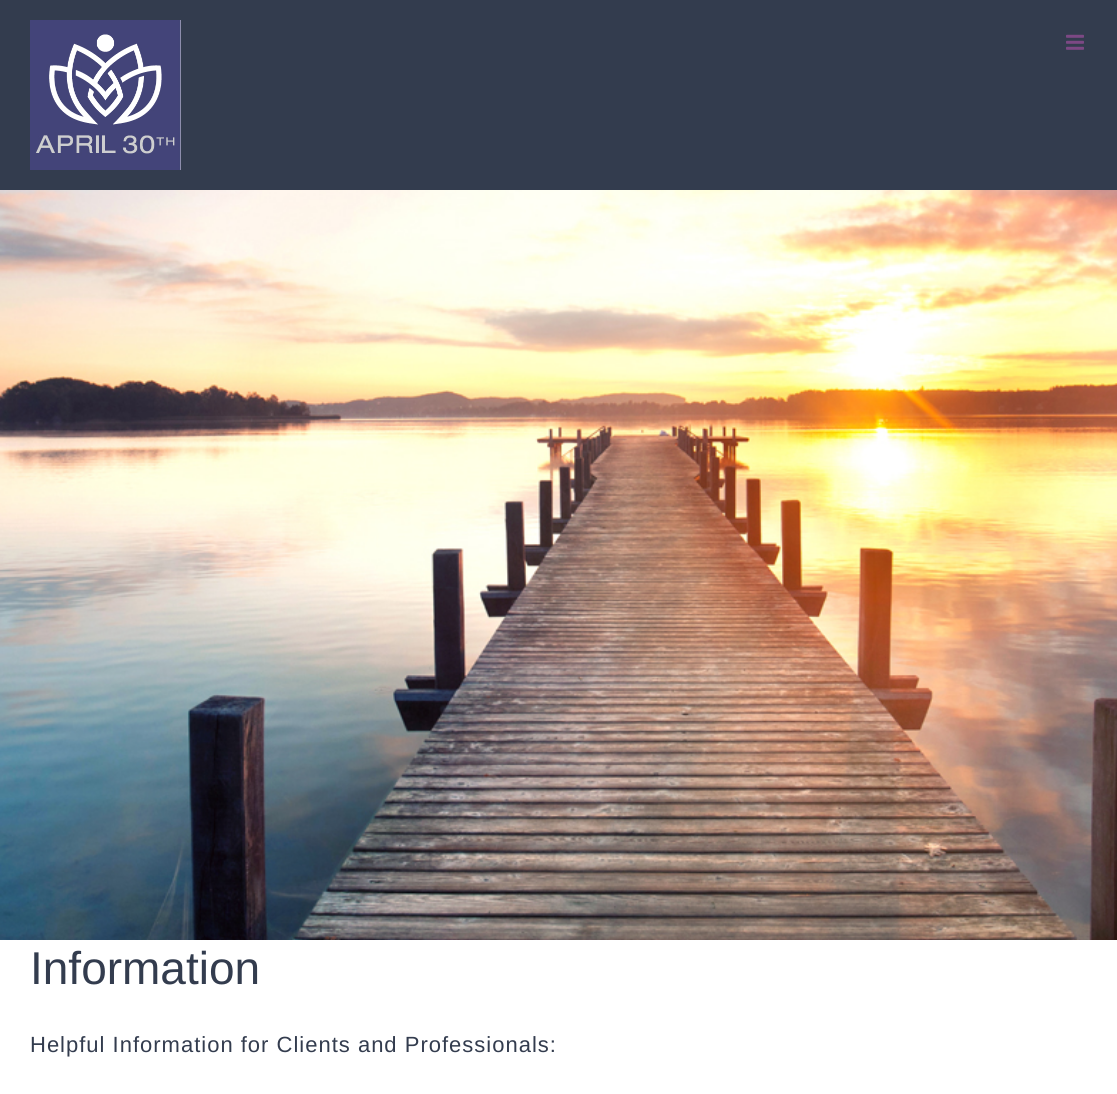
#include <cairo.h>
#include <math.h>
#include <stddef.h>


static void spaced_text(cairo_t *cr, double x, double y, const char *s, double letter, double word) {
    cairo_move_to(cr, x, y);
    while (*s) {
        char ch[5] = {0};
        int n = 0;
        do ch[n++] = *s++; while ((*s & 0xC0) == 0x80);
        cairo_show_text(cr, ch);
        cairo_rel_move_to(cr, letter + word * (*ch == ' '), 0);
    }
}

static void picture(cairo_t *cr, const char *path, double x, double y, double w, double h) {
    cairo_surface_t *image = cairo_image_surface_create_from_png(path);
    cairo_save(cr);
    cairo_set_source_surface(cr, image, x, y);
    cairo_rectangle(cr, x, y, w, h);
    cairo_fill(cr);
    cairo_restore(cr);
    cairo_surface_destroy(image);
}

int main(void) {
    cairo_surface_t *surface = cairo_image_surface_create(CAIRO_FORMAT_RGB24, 1117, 1094);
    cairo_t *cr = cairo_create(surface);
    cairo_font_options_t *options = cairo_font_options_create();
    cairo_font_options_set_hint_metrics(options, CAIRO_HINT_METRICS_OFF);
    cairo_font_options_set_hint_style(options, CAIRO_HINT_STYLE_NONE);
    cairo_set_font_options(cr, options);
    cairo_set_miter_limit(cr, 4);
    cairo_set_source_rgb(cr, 1, 1, 1);
    cairo_paint(cr);
    cairo_set_source_rgb(cr, 0.2, 0.235, 0.306);
    cairo_rectangle(cr, 0, 0, 1117, 190);
    cairo_fill(cr);
    picture(cr, "img1.png", 30, 20, 151, 150);
    picture(cr, "img2.png", 1066, 34, 18, 16);
    picture(cr, "img3.png", 0, 190, 1117, 750);
    cairo_select_font_face(cr, "Liberation Sans", CAIRO_FONT_SLANT_NORMAL, CAIRO_FONT_WEIGHT_NORMAL);
    cairo_set_font_size(cr, 46);
    cairo_move_to(cr, 30, 984);
    cairo_show_text(cr, "Information");
    cairo_set_font_size(cr, 22);
    spaced_text(cr, 30, 1052, "Helpful Information for Clients and Professionals:", 1, 0);
    cairo_surface_write_to_png(surface, "page.png");
    cairo_font_options_destroy(options);
    cairo_destroy(cr);
    cairo_surface_destroy(surface);
    return 0;
}
